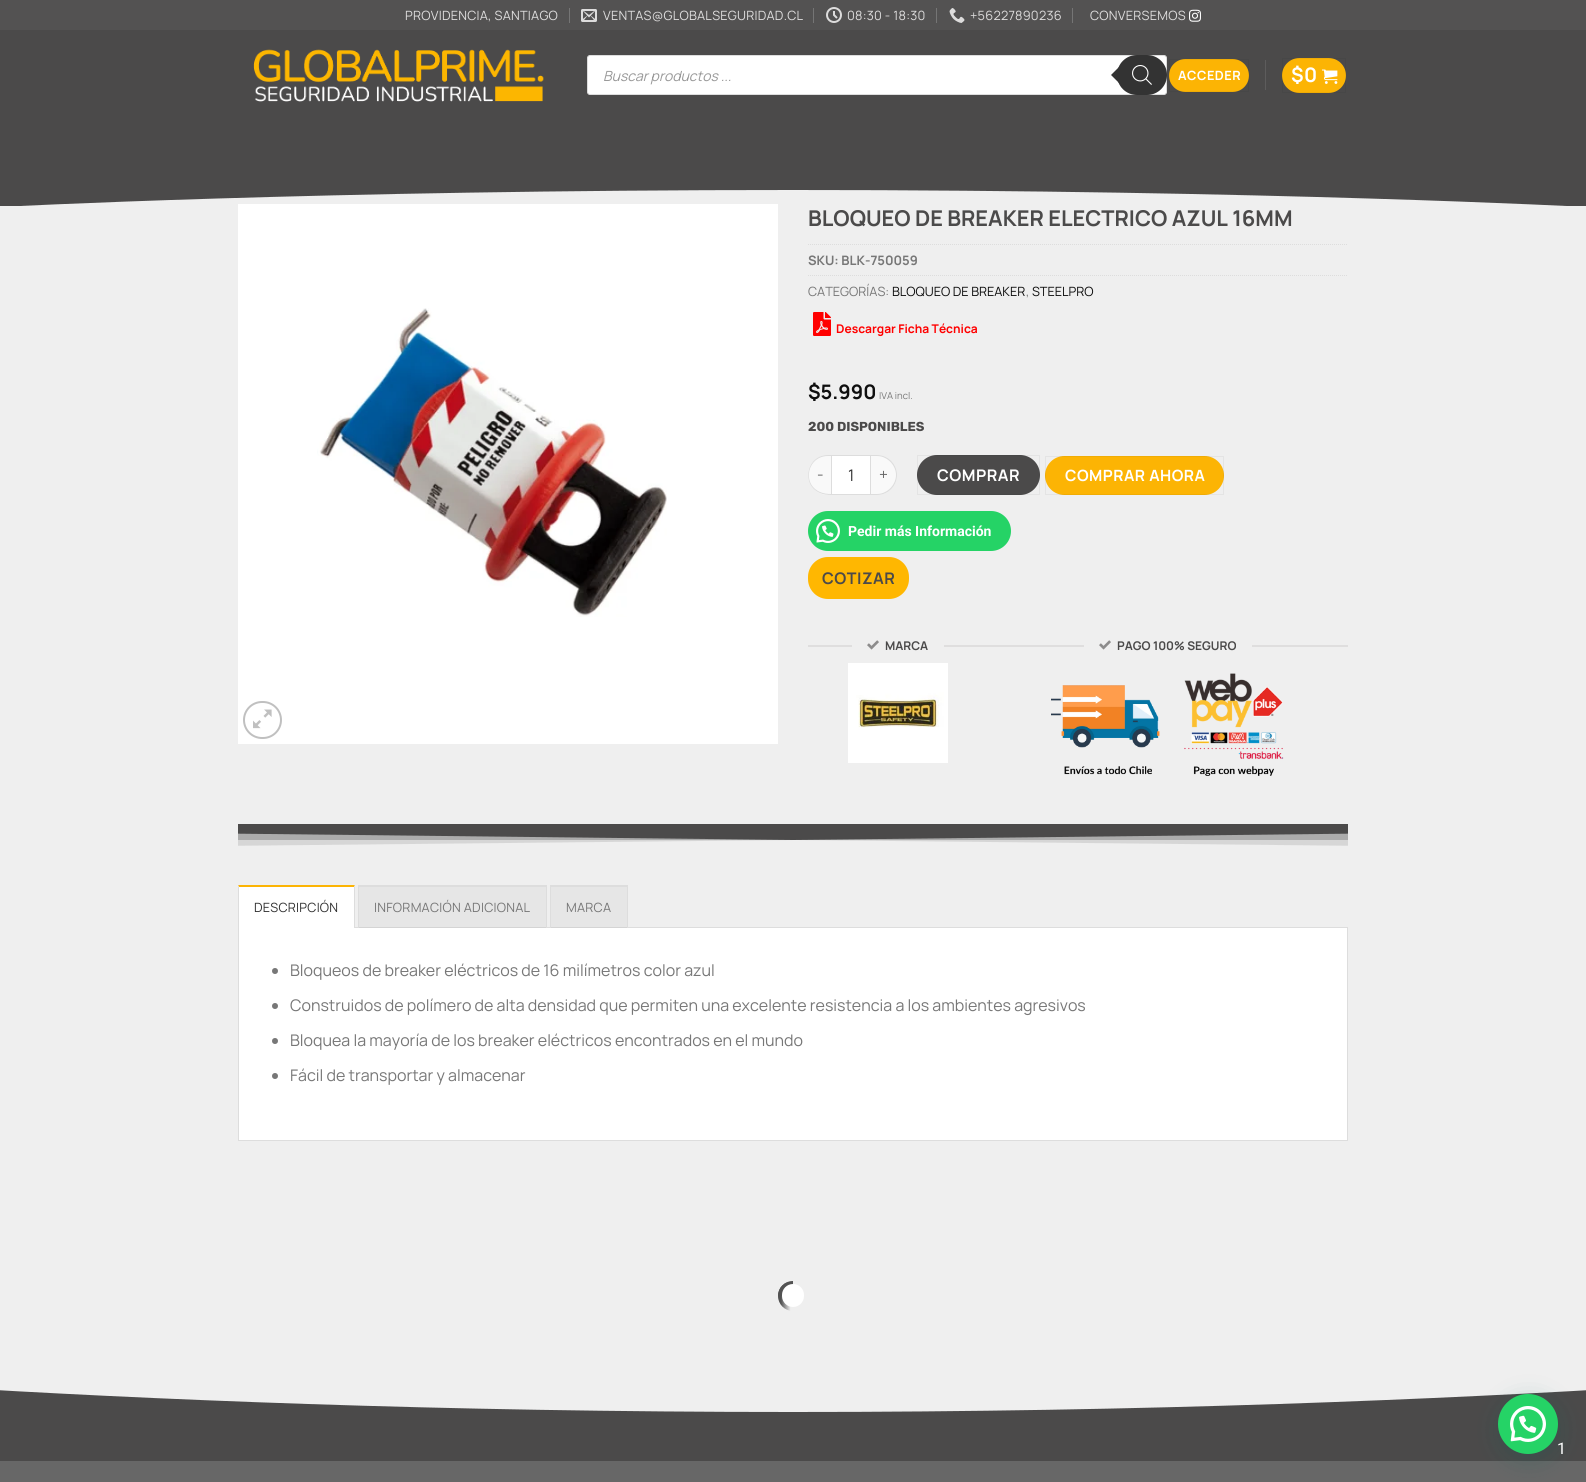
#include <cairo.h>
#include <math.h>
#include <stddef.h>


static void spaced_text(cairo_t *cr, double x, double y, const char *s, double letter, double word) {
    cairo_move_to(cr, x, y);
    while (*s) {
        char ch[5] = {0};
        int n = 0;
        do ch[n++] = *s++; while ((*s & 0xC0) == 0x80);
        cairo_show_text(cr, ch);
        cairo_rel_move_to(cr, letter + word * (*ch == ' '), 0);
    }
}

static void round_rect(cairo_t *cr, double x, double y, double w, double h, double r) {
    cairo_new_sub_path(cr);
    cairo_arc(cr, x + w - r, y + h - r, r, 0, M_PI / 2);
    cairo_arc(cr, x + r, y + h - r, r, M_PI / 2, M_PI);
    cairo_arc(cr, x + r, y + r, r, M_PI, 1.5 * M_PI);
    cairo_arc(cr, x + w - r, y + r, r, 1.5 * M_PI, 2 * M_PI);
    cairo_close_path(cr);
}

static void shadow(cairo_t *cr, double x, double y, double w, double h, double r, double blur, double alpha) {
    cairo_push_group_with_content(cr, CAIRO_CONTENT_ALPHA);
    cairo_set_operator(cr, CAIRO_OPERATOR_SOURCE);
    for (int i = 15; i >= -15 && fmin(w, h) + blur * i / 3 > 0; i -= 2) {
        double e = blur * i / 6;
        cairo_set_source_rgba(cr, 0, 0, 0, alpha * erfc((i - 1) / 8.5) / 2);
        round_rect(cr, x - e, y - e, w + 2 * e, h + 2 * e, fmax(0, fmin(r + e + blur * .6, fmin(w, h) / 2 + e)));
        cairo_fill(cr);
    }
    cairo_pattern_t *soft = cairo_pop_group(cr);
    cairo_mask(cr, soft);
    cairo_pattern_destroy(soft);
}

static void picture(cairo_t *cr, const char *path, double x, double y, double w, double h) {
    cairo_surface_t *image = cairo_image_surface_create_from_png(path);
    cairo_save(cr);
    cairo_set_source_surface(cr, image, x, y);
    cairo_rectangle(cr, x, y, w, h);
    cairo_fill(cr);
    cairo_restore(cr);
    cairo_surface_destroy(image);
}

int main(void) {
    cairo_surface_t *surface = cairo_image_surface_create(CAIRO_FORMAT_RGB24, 1586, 1482);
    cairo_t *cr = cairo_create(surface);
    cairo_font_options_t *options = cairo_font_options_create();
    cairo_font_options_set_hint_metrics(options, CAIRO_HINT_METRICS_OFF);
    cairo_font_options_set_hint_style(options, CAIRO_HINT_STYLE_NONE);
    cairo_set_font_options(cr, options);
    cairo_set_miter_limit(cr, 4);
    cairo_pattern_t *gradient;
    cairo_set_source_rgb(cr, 0.937, 0.937, 0.937);
    cairo_paint(cr);
    cairo_set_source_rgb(cr, 0.325, 0.322, 0.322);
    cairo_rectangle(cr, 0, 0, 1586, 30);
    cairo_fill(cr);
    cairo_select_font_face(cr, "Manrope", CAIRO_FONT_SLANT_NORMAL, CAIRO_FONT_WEIGHT_NORMAL);
    cairo_set_font_size(cr, 12.75);
    cairo_set_source_rgb(cr, 0.867, 0.863, 0.863);
    spaced_text(cr, 405, 20, "PROVIDENCIA, SANTIAGO", 0.25, 0);
    cairo_set_source_rgb(cr, 0.459, 0.459, 0.459);
    cairo_rectangle(cr, 569, 8, 1, 15);
    cairo_fill(cr);
    picture(cr, "img1.png", 581, 9, 16, 13);
    cairo_set_source_rgb(cr, 0.867, 0.863, 0.863);
    spaced_text(cr, 603, 20, "VENTAS@GLOBALSEGURIDAD.CL", 0.25, 0);
    cairo_set_source_rgb(cr, 0.459, 0.459, 0.459);
    cairo_rectangle(cr, 813, 8, 1, 15);
    cairo_fill(cr);
    picture(cr, "img2.png", 826, 7, 16, 16);
    cairo_set_source_rgb(cr, 0.867, 0.863, 0.863);
    spaced_text(cr, 847, 20, "08:30 - 18:30", 0.25, 0);
    cairo_set_source_rgb(cr, 0.459, 0.459, 0.459);
    cairo_rectangle(cr, 936, 8, 1, 15);
    cairo_fill(cr);
    picture(cr, "img3.png", 949, 8, 16, 15);
    cairo_set_source_rgb(cr, 0.867, 0.863, 0.863);
    spaced_text(cr, 970, 20, "+56227890236", 0.25, 0);
    cairo_set_source_rgb(cr, 0.459, 0.459, 0.459);
    cairo_rectangle(cr, 1072, 8, 1, 15);
    cairo_fill(cr);
    cairo_set_source_rgb(cr, 0.867, 0.863, 0.863);
    spaced_text(cr, 1090, 20, "CONVERSEMOS", 0.25, 0);
    picture(cr, "img4.png", 1189, 9, 12, 13);
    cairo_set_source_rgb(cr, 0.294, 0.29, 0.29);
    cairo_rectangle(cr, 0, 30, 1586, 144);
    cairo_fill(cr);
    picture(cr, "img5.png", 253, 49, 291, 53);
    cairo_set_source_rgb(cr, 1, 1, 1);
    round_rect(cr, 587.5, 55.5, 579, 39, 2.5);
    cairo_fill_preserve(cr);
    cairo_set_source_rgb(cr, 0.867, 0.867, 0.867);
    cairo_set_line_width(cr, 1);
    cairo_stroke(cr);
    cairo_select_font_face(cr, "Manrope", CAIRO_FONT_SLANT_ITALIC, CAIRO_FONT_WEIGHT_NORMAL);
    cairo_set_font_size(cr, 14);
    cairo_set_source_rgb(cr, 0.6, 0.6, 0.6);
    cairo_move_to(cr, 603, 81);
    cairo_show_text(cr, "Buscar productos ...");
    cairo_set_source_rgb(cr, 0.2, 0.2, 0.2);
    round_rect(cr, 1117, 55, 50, 40, 20);
    cairo_fill(cr);
    cairo_new_path(cr);
    cairo_move_to(cr, 1119, 67);
    cairo_line_to(cr, 1119, 83);
    cairo_line_to(cr, 1111, 75);
    cairo_close_path(cr);
    cairo_fill(cr);
    picture(cr, "img6.png", 1132, 65, 20, 20);
    cairo_set_source_rgb(cr, 0.988, 0.706, 0.016);
    round_rect(cr, 1169, 59, 80, 33, 16.5);
    cairo_fill(cr);
    cairo_rectangle(cr, 1169.5, 59.5, 79, 32);
    cairo_set_source_rgba(cr, 0, 0, 0, 0.05);
    cairo_stroke(cr);
    cairo_select_font_face(cr, "Manrope", CAIRO_FONT_SLANT_NORMAL, CAIRO_FONT_WEIGHT_BOLD);
    cairo_set_font_size(cr, 12.75);
    cairo_set_source_rgb(cr, 1, 1, 1);
    spaced_text(cr, 1178, 80, "ACCEDER", 0.5, 0);
    cairo_set_source_rgb(cr, 0.365, 0.361, 0.361);
    cairo_rectangle(cr, 1265, 60, 1, 30);
    cairo_fill(cr);
    cairo_set_source_rgb(cr, 0.988, 0.706, 0.016);
    round_rect(cr, 1282, 58, 64, 35, 17.5);
    cairo_fill(cr);
    cairo_rectangle(cr, 1282.5, 58.5, 63, 34);
    cairo_set_source_rgba(cr, 0, 0, 0, 0.05);
    cairo_stroke(cr);
    cairo_set_font_size(cr, 20);
    cairo_set_source_rgb(cr, 1, 1, 1);
    spaced_text(cr, 1291, 82, "$0", 0.5, 0);
    picture(cr, "img7.png", 1322, 69, 16, 15);
    cairo_save(cr);
    cairo_rectangle(cr, 0, 173, 1586, 33);
    cairo_clip(cr);
    cairo_set_source_rgb(cr, 0.294, 0.29, 0.29);
    cairo_new_path(cr);
    cairo_move_to(cr, 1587, 207);
    cairo_curve_to(cr, 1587, 207, 1269, 190, 793, 190);
    cairo_curve_to(cr, 317, 190, -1, 207, -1, 207);
    cairo_line_to(cr, -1, 174);
    cairo_line_to(cr, 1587, 174);
    cairo_close_path(cr);
    cairo_fill(cr);
    cairo_restore(cr);
    cairo_rectangle(cr, 238, 204, 540, 540);
    cairo_fill(cr);
    picture(cr, "img8.png", 317, 308, 350, 309);
    round_rect(cr, 244, 702, 37, 36, 18);
    cairo_set_source_rgb(cr, 0.753, 0.753, 0.753);
    cairo_set_line_width(cr, 2);
    cairo_stroke(cr);
    picture(cr, "img9.png", 253, 709, 19, 20);
    cairo_set_font_size(cr, 21.75);
    cairo_set_source_rgb(cr, 0.294, 0.29, 0.29);
    cairo_move_to(cr, 808, 226);
    cairo_show_text(cr, "BLOQUEO DE BREAKER ELECTRICO AZUL 16MM");
    cairo_new_path(cr);
    cairo_move_to(cr, 808, 244.5);
    cairo_line_to(cr, 1348, 244.5);
    cairo_set_source_rgb(cr, 0.867, 0.867, 0.867);
    cairo_set_line_width(cr, 1);
    cairo_set_dash(cr, (double[]){1, 1}, 2, 0);
    cairo_stroke(cr);
    cairo_set_font_size(cr, 13);
    cairo_set_source_rgb(cr, 0.467, 0.467, 0.467);
    cairo_move_to(cr, 808, 265);
    cairo_show_text(cr, "SKU: BLK-750059");
    cairo_new_path(cr);
    cairo_move_to(cr, 808, 275.5);
    cairo_line_to(cr, 1348, 275.5);
    cairo_set_source_rgb(cr, 0.867, 0.867, 0.867);
    cairo_stroke(cr);
    cairo_select_font_face(cr, "Manrope", CAIRO_FONT_SLANT_NORMAL, CAIRO_FONT_WEIGHT_NORMAL);
    cairo_set_font_size(cr, 12.75);
    cairo_set_source_rgb(cr, 0.467, 0.467, 0.467);
    cairo_move_to(cr, 808, 296);
    cairo_show_text(cr, "CATEGORÍAS:");
    cairo_set_source_rgb(cr, 0.059, 0.059, 0.059);
    cairo_move_to(cr, 892, 296);
    cairo_show_text(cr, "BLOQUEO DE BREAKER");
    cairo_set_source_rgb(cr, 0.467, 0.467, 0.467);
    cairo_move_to(cr, 1026, 296);
    cairo_show_text(cr, ",");
    cairo_set_source_rgb(cr, 0.059, 0.059, 0.059);
    cairo_move_to(cr, 1032, 296);
    cairo_show_text(cr, "STEELPRO");
    picture(cr, "img10.png", 813, 312, 18, 24);
    cairo_select_font_face(cr, "Manrope", CAIRO_FONT_SLANT_NORMAL, CAIRO_FONT_WEIGHT_BOLD);
    cairo_set_font_size(cr, 12);
    cairo_set_source_rgb(cr, 1, 0, 0);
    cairo_move_to(cr, 836, 333);
    cairo_show_text(cr, "Descargar Ficha Técnica");
    cairo_set_font_size(cr, 20);
    cairo_set_source_rgb(cr, 0.059, 0.059, 0.059);
    cairo_move_to(cr, 808, 399);
    cairo_show_text(cr, "$5.990");
    cairo_select_font_face(cr, "Manrope", CAIRO_FONT_SLANT_NORMAL, CAIRO_FONT_WEIGHT_NORMAL);
    cairo_set_font_size(cr, 9.5);
    cairo_set_source_rgb(cr, 0.467, 0.467, 0.467);
    cairo_move_to(cr, 879, 399);
    cairo_show_text(cr, "IVA incl.");
    cairo_select_font_face(cr, "Rubik", CAIRO_FONT_SLANT_NORMAL, CAIRO_FONT_WEIGHT_BOLD);
    cairo_set_font_size(cr, 13);
    cairo_set_source_rgb(cr, 0.294, 0.29, 0.29);
    cairo_move_to(cr, 808, 431);
    cairo_show_text(cr, "200 DISPONIBLES");
    cairo_set_source_rgb(cr, 0.976, 0.976, 0.976);
    cairo_new_path(cr);
    cairo_move_to(cr, 828, 455);
    cairo_line_to(cr, 831, 455);
    cairo_line_to(cr, 831, 495);
    cairo_line_to(cr, 828, 495);
    cairo_curve_to(cr, 817, 495, 808, 486, 808, 475);
    cairo_curve_to(cr, 808, 464, 817, 455, 828, 455);
    cairo_close_path(cr);
    cairo_fill(cr);
    cairo_set_source_rgb(cr, 0.867, 0.867, 0.867);
    cairo_set_fill_rule(cr, CAIRO_FILL_RULE_EVEN_ODD);
    cairo_new_path(cr);
    cairo_move_to(cr, 828, 455);
    cairo_line_to(cr, 831, 455);
    cairo_line_to(cr, 831, 495);
    cairo_curve_to(cr, 799, 495, 803, 455, 828, 455);
    cairo_close_path(cr);
    cairo_move_to(cr, 828, 456);
    cairo_line_to(cr, 831, 456);
    cairo_line_to(cr, 831, 494);
    cairo_curve_to(cr, 800, 494, 804, 456, 828, 456);
    cairo_close_path(cr);
    cairo_fill(cr);
    cairo_select_font_face(cr, "Manrope", CAIRO_FONT_SLANT_NORMAL, CAIRO_FONT_WEIGHT_NORMAL);
    cairo_set_font_size(cr, 15.5);
    cairo_set_source_rgb(cr, 0.4, 0.4, 0.4);
    spaced_text(cr, 817, 480, "-", 0.5, 0);
    cairo_set_source_rgb(cr, 1, 1, 1);
    cairo_rectangle(cr, 831.5, 455.5, 39, 39);
    cairo_fill_preserve(cr);
    cairo_set_source_rgb(cr, 0.867, 0.867, 0.867);
    cairo_set_dash(cr, NULL, 0, 0);
    cairo_stroke(cr);
    cairo_set_font_size(cr, 16);
    cairo_set_source_rgb(cr, 0.2, 0.2, 0.2);
    cairo_move_to(cr, 848, 481);
    cairo_show_text(cr, "1");
    cairo_set_source_rgb(cr, 0.976, 0.976, 0.976);
    cairo_new_path(cr);
    cairo_move_to(cr, 871, 455);
    cairo_line_to(cr, 877, 455);
    cairo_curve_to(cr, 888, 455, 897, 464, 897, 475);
    cairo_curve_to(cr, 897, 486, 888, 495, 877, 495);
    cairo_line_to(cr, 871, 495);
    cairo_close_path(cr);
    cairo_fill(cr);
    cairo_set_source_rgb(cr, 0.867, 0.867, 0.867);
    cairo_new_path(cr);
    cairo_move_to(cr, 871, 455);
    cairo_line_to(cr, 877, 455);
    cairo_curve_to(cr, 888, 455, 897, 464, 897, 475);
    cairo_curve_to(cr, 897, 486, 888, 495, 877, 495);
    cairo_line_to(cr, 871, 495);
    cairo_close_path(cr);
    cairo_move_to(cr, 871, 456);
    cairo_line_to(cr, 877, 456);
    cairo_curve_to(cr, 887, 456, 896, 465, 896, 475);
    cairo_curve_to(cr, 896, 485, 887, 494, 877, 494);
    cairo_line_to(cr, 871, 494);
    cairo_close_path(cr);
    cairo_fill(cr);
    cairo_set_font_size(cr, 15.5);
    cairo_set_source_rgb(cr, 0.4, 0.4, 0.4);
    spaced_text(cr, 879, 480, "+", 0.5, 0);
    cairo_set_source_rgb(cr, 0.294, 0.29, 0.29);
    round_rect(cr, 917, 455, 123, 40, 20);
    cairo_fill(cr);
    cairo_rectangle(cr, 917.5, 455.5, 122, 39);
    cairo_set_source_rgba(cr, 0, 0, 0, 0.05);
    cairo_stroke(cr);
    cairo_select_font_face(cr, "Manrope", CAIRO_FONT_SLANT_NORMAL, CAIRO_FONT_WEIGHT_BOLD);
    cairo_set_font_size(cr, 16);
    cairo_set_source_rgb(cr, 1, 1, 1);
    spaced_text(cr, 937, 481, "COMPRAR", 0.5, 0);
    cairo_set_source_rgb(cr, 0.988, 0.706, 0.016);
    round_rect(cr, 1045, 456, 179, 39, 19.5);
    cairo_fill(cr);
    cairo_rectangle(cr, 1045.5, 456.5, 178, 38);
    cairo_set_source_rgba(cr, 0, 0, 0, 0.05);
    cairo_stroke(cr);
    cairo_set_font_size(cr, 15.5);
    cairo_set_source_rgb(cr, 1, 1, 1);
    spaced_text(cr, 1065, 481, "COMPRAR AHORA", 0.5, 0);
    cairo_set_source_rgb(cr, 0.145, 0.827, 0.4);
    round_rect(cr, 808, 511, 203, 40, 20);
    cairo_fill(cr);
    picture(cr, "img11.png", 816, 519, 24, 24);
    cairo_select_font_face(cr, "Roboto", CAIRO_FONT_SLANT_NORMAL, CAIRO_FONT_WEIGHT_BOLD);
    cairo_set_font_size(cr, 14);
    cairo_set_source_rgb(cr, 1, 1, 1);
    cairo_move_to(cr, 848, 536);
    cairo_show_text(cr, "Pedir más Información");
    cairo_set_source_rgb(cr, 1, 0.718, 0.004);
    round_rect(cr, 808, 557, 101, 42, 20);
    cairo_fill(cr);
    cairo_select_font_face(cr, "Manrope", CAIRO_FONT_SLANT_NORMAL, CAIRO_FONT_WEIGHT_BOLD);
    cairo_set_font_size(cr, 16);
    cairo_set_source_rgb(cr, 0.294, 0.29, 0.29);
    spaced_text(cr, 822, 584, "COTIZAR", 0.5, 0);
    cairo_set_source_rgb(cr, 0.875, 0.871, 0.871);
    cairo_rectangle(cr, 808, 645, 44, 2);
    cairo_fill(cr);
    picture(cr, "img12.png", 867, 640, 12, 10);
    cairo_set_font_size(cr, 12);
    cairo_set_source_rgb(cr, 0.294, 0.29, 0.29);
    cairo_move_to(cr, 885, 650);
    cairo_show_text(cr, "MARCA");
    cairo_set_source_rgb(cr, 0.875, 0.871, 0.871);
    cairo_rectangle(cr, 944, 645, 140, 2);
    cairo_fill(cr);
    picture(cr, "img13.png", 848, 663, 100, 100);
    picture(cr, "img12.png", 1099, 640, 12, 10);
    cairo_set_source_rgb(cr, 0.294, 0.29, 0.29);
    cairo_move_to(cr, 1117, 650);
    cairo_show_text(cr, "PAGO 100% SEGURO");
    cairo_set_source_rgb(cr, 0.875, 0.871, 0.871);
    cairo_rectangle(cr, 1252, 645, 96, 2);
    cairo_fill(cr);
    picture(cr, "img14.png", 1051, 673, 233, 103);
    cairo_save(cr);
    cairo_set_fill_rule(cr, CAIRO_FILL_RULE_WINDING);
    cairo_rectangle(cr, 238, 824, 1110, 31);
    cairo_clip(cr);
    cairo_set_source_rgb(cr, 0.294, 0.29, 0.29);
    cairo_new_path(cr);
    cairo_move_to(cr, 793, 840);
    cairo_line_to(cr, -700, 823);
    cairo_line_to(cr, 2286, 823);
    cairo_close_path(cr);
    cairo_fill(cr);
    cairo_set_source_rgba(cr, 0.294, 0.29, 0.29, 0.15);
    cairo_new_path(cr);
    cairo_move_to(cr, -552, 854);
    cairo_line_to(cr, 793, 840);
    cairo_line_to(cr, 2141, 854);
    cairo_line_to(cr, 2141, 823);
    cairo_line_to(cr, -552, 823);
    cairo_close_path(cr);
    cairo_fill(cr);
    cairo_restore(cr);
    cairo_set_source_rgba(cr, 0.294, 0.29, 0.29, 0.3);
    cairo_rectangle(cr, 238, 833, 1110, 7);
    cairo_fill(cr);
    cairo_set_source_rgb(cr, 1, 1, 1);
    cairo_rectangle(cr, 238.5, 927.5, 1109, 213);
    cairo_fill_preserve(cr);
    cairo_set_source_rgb(cr, 0.867, 0.867, 0.867);
    cairo_stroke(cr);
    cairo_set_source_rgb(cr, 1, 1, 1);
    cairo_rectangle(cr, 238, 885, 117, 43);
    cairo_fill(cr);
    cairo_set_source_rgb(cr, 0.988, 0.706, 0.016);
    cairo_set_fill_rule(cr, CAIRO_FILL_RULE_WINDING);
    cairo_new_path(cr);
    cairo_move_to(cr, 238, 885);
    cairo_line_to(cr, 355, 885);
    cairo_line_to(cr, 354, 887);
    cairo_line_to(cr, 239, 887);
    cairo_close_path(cr);
    cairo_fill(cr);
    cairo_set_source_rgb(cr, 0.867, 0.867, 0.867);
    cairo_new_path(cr);
    cairo_move_to(cr, 355, 885);
    cairo_line_to(cr, 355, 928);
    cairo_line_to(cr, 354, 928);
    cairo_line_to(cr, 354, 887);
    cairo_close_path(cr);
    cairo_fill(cr);
    cairo_new_path(cr);
    cairo_move_to(cr, 238, 928);
    cairo_line_to(cr, 238, 885);
    cairo_line_to(cr, 239, 887);
    cairo_line_to(cr, 239, 928);
    cairo_close_path(cr);
    cairo_fill(cr);
    cairo_select_font_face(cr, "Manrope", CAIRO_FONT_SLANT_NORMAL, CAIRO_FONT_WEIGHT_NORMAL);
    cairo_set_font_size(cr, 12.75);
    cairo_set_source_rgb(cr, 0.2, 0.2, 0.2);
    spaced_text(cr, 254, 912, "DESCRIPCIÓN", 0.25, 0);
    cairo_set_source_rgba(cr, 0, 0, 0, 0.04);
    cairo_rectangle(cr, 359, 887, 187, 41);
    cairo_fill(cr);
    cairo_set_source_rgb(cr, 0.867, 0.867, 0.867);
    cairo_rectangle(cr, 358, 885, 189, 2);
    cairo_fill(cr);
    cairo_rectangle(cr, 546, 885, 1, 43);
    cairo_fill(cr);
    cairo_rectangle(cr, 358, 885, 1, 43);
    cairo_fill(cr);
    cairo_set_source_rgb(cr, 0.467, 0.467, 0.467);
    spaced_text(cr, 374, 912, "INFORMACIÓN ADICIONAL", 0.25, 0);
    cairo_set_source_rgba(cr, 0, 0, 0, 0.04);
    cairo_rectangle(cr, 551, 887, 76, 41);
    cairo_fill(cr);
    cairo_set_source_rgb(cr, 0.867, 0.867, 0.867);
    cairo_rectangle(cr, 550, 885, 78, 2);
    cairo_fill(cr);
    cairo_rectangle(cr, 627, 885, 1, 43);
    cairo_fill(cr);
    cairo_rectangle(cr, 550, 885, 1, 43);
    cairo_fill(cr);
    cairo_set_source_rgb(cr, 0.467, 0.467, 0.467);
    spaced_text(cr, 566, 912, "MARCA", 0.25, 0);
    cairo_new_path(cr);
    cairo_arc(cr, 275, 971, 3, 0, 2 * M_PI);
    cairo_fill(cr);
    cairo_set_font_size(cr, 16);
    cairo_move_to(cr, 290, 976);
    cairo_show_text(cr, "Bloqueos de breaker eléctricos de 16 milímetros color azul");
    cairo_new_path(cr);
    cairo_arc(cr, 275, 1006, 3, 0, 2 * M_PI);
    cairo_fill(cr);
    cairo_move_to(cr, 290, 1011);
    cairo_show_text(cr, "Construidos de polímero de alta densidad que permiten una excelente resistencia a los ambientes agresivos");
    cairo_new_path(cr);
    cairo_arc(cr, 275, 1041, 3, 0, 2 * M_PI);
    cairo_fill(cr);
    cairo_move_to(cr, 290, 1046);
    cairo_show_text(cr, "Bloquea la mayoría de los breaker eléctricos encontrados en el mundo");
    cairo_new_path(cr);
    cairo_arc(cr, 275, 1076, 3, 0, 2 * M_PI);
    cairo_fill(cr);
    cairo_move_to(cr, 290, 1081);
    cairo_show_text(cr, "Fácil de transportar y almacenar");
    gradient = cairo_pattern_create_linear(778, 1296, 808, 1296);
    cairo_pattern_add_color_stop_rgba(gradient, 0.1, 0.322, 0.322, 0.322, 1);
    cairo_pattern_add_color_stop_rgba(gradient, 0.42, 0.937, 0.937, 0.937, 1);
    cairo_set_source(cr, gradient);
    cairo_pattern_destroy(gradient);
    cairo_new_path(cr);
    cairo_arc(cr, 793, 1296, 15, 0, 2 * M_PI);
    cairo_fill(cr);
    cairo_set_source_rgb(cr, 0.322, 0.322, 0.322);
    cairo_new_path(cr);
    cairo_move_to(cr, 793, 1281);
    cairo_line_to(cr, 793, 1296);
    cairo_line_to(cr, 778, 1296);
    cairo_curve_to(cr, 778, 1287.5, 784.5, 1281, 793, 1281);
    cairo_close_path(cr);
    cairo_fill(cr);
    cairo_set_source_rgb(cr, 1, 1, 1);
    round_rect(cr, 782, 1284, 22, 23, 11);
    cairo_fill(cr);
    cairo_set_source_rgb(cr, 0.294, 0.29, 0.29);
    cairo_new_path(cr);
    cairo_move_to(cr, -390, 1361);
    cairo_curve_to(cr, -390, 1361, 83, 1412, 793, 1412);
    cairo_curve_to(cr, 1503, 1412, 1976, 1361, 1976, 1361);
    cairo_line_to(cr, 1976, 1463);
    cairo_line_to(cr, -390, 1463);
    cairo_close_path(cr);
    cairo_fill(cr);
    cairo_set_source_rgb(cr, 0.404, 0.404, 0.404);
    cairo_rectangle(cr, 0, 1461, 1586, 21);
    cairo_fill(cr);
    cairo_set_source_rgb(cr, 0.027, 0.369, 0.329);
    shadow(cr, 1499, 1400, 60, 60, 30, 12, 0.24);
    cairo_set_source_rgb(cr, 0.145, 0.827, 0.4);
    cairo_arc(cr, 1528, 1424, 30, 0, 2 * M_PI);
    cairo_fill(cr);
    picture(cr, "img15.png", 1510, 1406, 36, 36);
    cairo_select_font_face(cr, "Roboto", CAIRO_FONT_SLANT_NORMAL, CAIRO_FONT_WEIGHT_NORMAL);
    cairo_set_source_rgb(cr, 1, 1, 1);
    cairo_move_to(cr, 1557, 1454);
    cairo_show_text(cr, "1");
    cairo_surface_write_to_png(surface, "page.png");
    cairo_font_options_destroy(options);
    cairo_destroy(cr);
    cairo_surface_destroy(surface);
    return 0;
}
